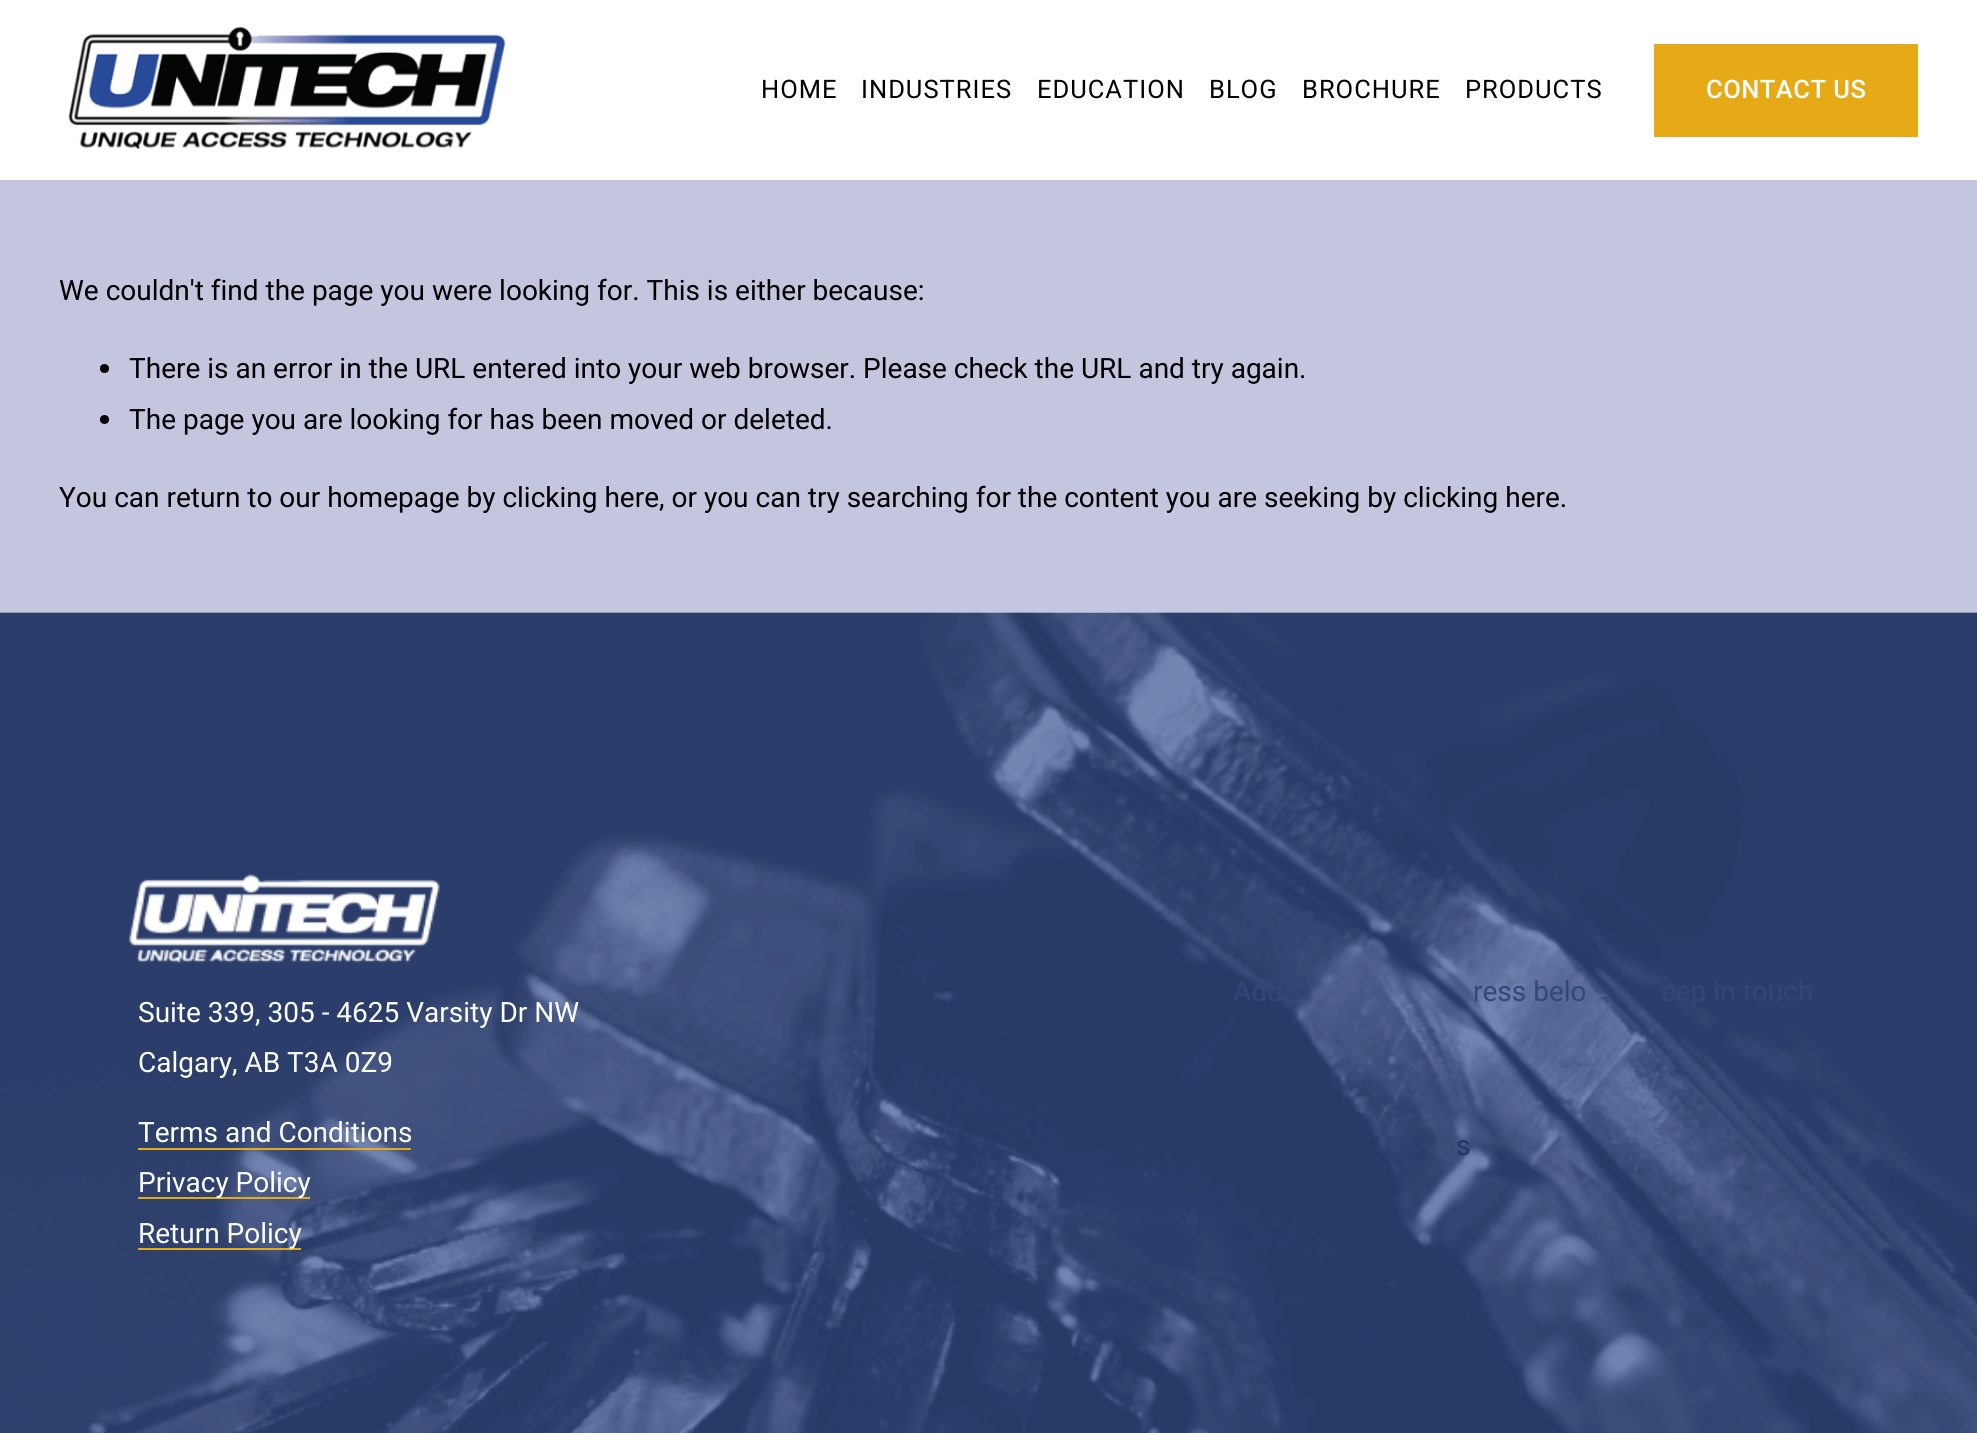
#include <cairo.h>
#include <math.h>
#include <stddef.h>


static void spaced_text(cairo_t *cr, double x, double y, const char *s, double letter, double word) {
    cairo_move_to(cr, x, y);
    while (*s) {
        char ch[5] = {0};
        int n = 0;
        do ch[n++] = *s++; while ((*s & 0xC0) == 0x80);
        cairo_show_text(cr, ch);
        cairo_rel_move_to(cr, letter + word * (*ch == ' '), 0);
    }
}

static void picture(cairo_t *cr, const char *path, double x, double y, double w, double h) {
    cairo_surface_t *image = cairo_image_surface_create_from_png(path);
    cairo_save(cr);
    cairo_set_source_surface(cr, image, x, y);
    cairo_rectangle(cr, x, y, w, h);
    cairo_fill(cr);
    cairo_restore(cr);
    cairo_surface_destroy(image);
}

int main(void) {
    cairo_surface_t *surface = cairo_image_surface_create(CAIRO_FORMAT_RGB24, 1977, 1433);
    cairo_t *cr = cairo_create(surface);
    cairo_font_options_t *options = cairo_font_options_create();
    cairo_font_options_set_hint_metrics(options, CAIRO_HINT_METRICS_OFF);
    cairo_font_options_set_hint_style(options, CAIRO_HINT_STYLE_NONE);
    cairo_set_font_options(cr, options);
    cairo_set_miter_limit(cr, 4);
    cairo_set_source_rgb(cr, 0.769, 0.776, 0.875);
    cairo_paint(cr);
    cairo_set_source_rgb(cr, 1, 1, 1);
    cairo_rectangle(cr, 0, 0, 1977, 180);
    cairo_fill(cr);
    picture(cr, "img1.png", 68, 26, 438, 124);
    cairo_select_font_face(cr, "Roboto", CAIRO_FONT_SLANT_NORMAL, CAIRO_FONT_WEIGHT_NORMAL);
    cairo_set_font_size(cr, 25.5);
    cairo_set_source_rgb(cr, 0, 0, 0);
    spaced_text(cr, 761, 98, "HOME", 1, 0);
    spaced_text(cr, 861, 98, "INDUSTRIES", 1, 0);
    spaced_text(cr, 1037, 98, "EDUCATION", 1, 0);
    spaced_text(cr, 1209, 98, "BLOG", 1, 0);
    spaced_text(cr, 1302, 98, "BROCHURE", 1, 0);
    spaced_text(cr, 1465, 98, "PRODUCTS", 1, 0);
    cairo_set_source_rgb(cr, 0.898, 0.667, 0.086);
    cairo_rectangle(cr, 1654, 44, 264, 93);
    cairo_fill(cr);
    cairo_select_font_face(cr, "Roboto Medium", CAIRO_FONT_SLANT_NORMAL, CAIRO_FONT_WEIGHT_NORMAL);
    cairo_set_source_rgb(cr, 1, 1, 1);
    spaced_text(cr, 1706, 98, "CONTACT US", 0.5, 0);
    cairo_select_font_face(cr, "Roboto", CAIRO_FONT_SLANT_NORMAL, CAIRO_FONT_WEIGHT_NORMAL);
    cairo_set_font_size(cr, 28);
    cairo_set_source_rgb(cr, 0, 0, 0);
    cairo_move_to(cr, 59, 300);
    cairo_show_text(cr, "We couldn't find the page you were looking for. This is either because:");
    cairo_new_path(cr);
    cairo_arc(cr, 104.5, 368.5, 4.5, 0, 2 * M_PI);
    cairo_fill(cr);
    cairo_move_to(cr, 129, 378);
    cairo_show_text(cr, "There is an error in the URL entered into your web browser. Please check the URL and try again.");
    cairo_new_path(cr);
    cairo_arc(cr, 104.5, 419.5, 4.5, 0, 2 * M_PI);
    cairo_fill(cr);
    cairo_move_to(cr, 129, 429);
    cairo_show_text(cr, "The page you are looking for has been moved or deleted.");
    cairo_move_to(cr, 59, 507);
    cairo_show_text(cr, "You can return to our homepage by clicking here, or you can try searching for the content you are seeking by clicking here.");
    picture(cr, "img2.png", 0, 612, 1977, 821);
    picture(cr, "img3.png", 129, 874, 311, 89);
    cairo_set_source_rgb(cr, 1, 1, 1);
    cairo_move_to(cr, 138, 1022);
    cairo_show_text(cr, "Suite 339, 305 - 4625 Varsity Dr NW");
    cairo_move_to(cr, 138, 1072);
    cairo_show_text(cr, "Calgary, AB T3A 0Z9");
    cairo_set_source_rgb(cr, 0.192, 0.278, 0.475);
    cairo_move_to(cr, 1233, 1001);
    cairo_show_text(cr, "Add");
    cairo_move_to(cr, 1473, 1001);
    cairo_show_text(cr, "ress belo");
    cairo_move_to(cr, 1661, 1001);
    cairo_show_text(cr, "eep in touch");
    cairo_set_source_rgb(cr, 0.122, 0.208, 0.4);
    cairo_move_to(cr, 1456, 1155);
    cairo_show_text(cr, "s");
    cairo_set_source_rgb(cr, 1, 1, 1);
    cairo_move_to(cr, 138, 1142);
    cairo_show_text(cr, "Terms and Conditions");
    cairo_set_source_rgb(cr, 0.898, 0.667, 0.086);
    cairo_rectangle(cr, 138, 1148, 273, 2);
    cairo_fill(cr);
    cairo_rectangle(cr, 138, 1197, 172, 2);
    cairo_fill(cr);
    cairo_set_source_rgb(cr, 1, 1, 1);
    cairo_move_to(cr, 138, 1192);
    cairo_show_text(cr, "Privacy Policy");
    cairo_set_source_rgb(cr, 0.898, 0.667, 0.086);
    cairo_rectangle(cr, 138, 1248, 163, 2);
    cairo_fill(cr);
    cairo_set_source_rgb(cr, 1, 1, 1);
    cairo_move_to(cr, 138, 1243);
    cairo_show_text(cr, "Return Policy");
    cairo_surface_write_to_png(surface, "page.png");
    cairo_font_options_destroy(options);
    cairo_destroy(cr);
    cairo_surface_destroy(surface);
    return 0;
}
